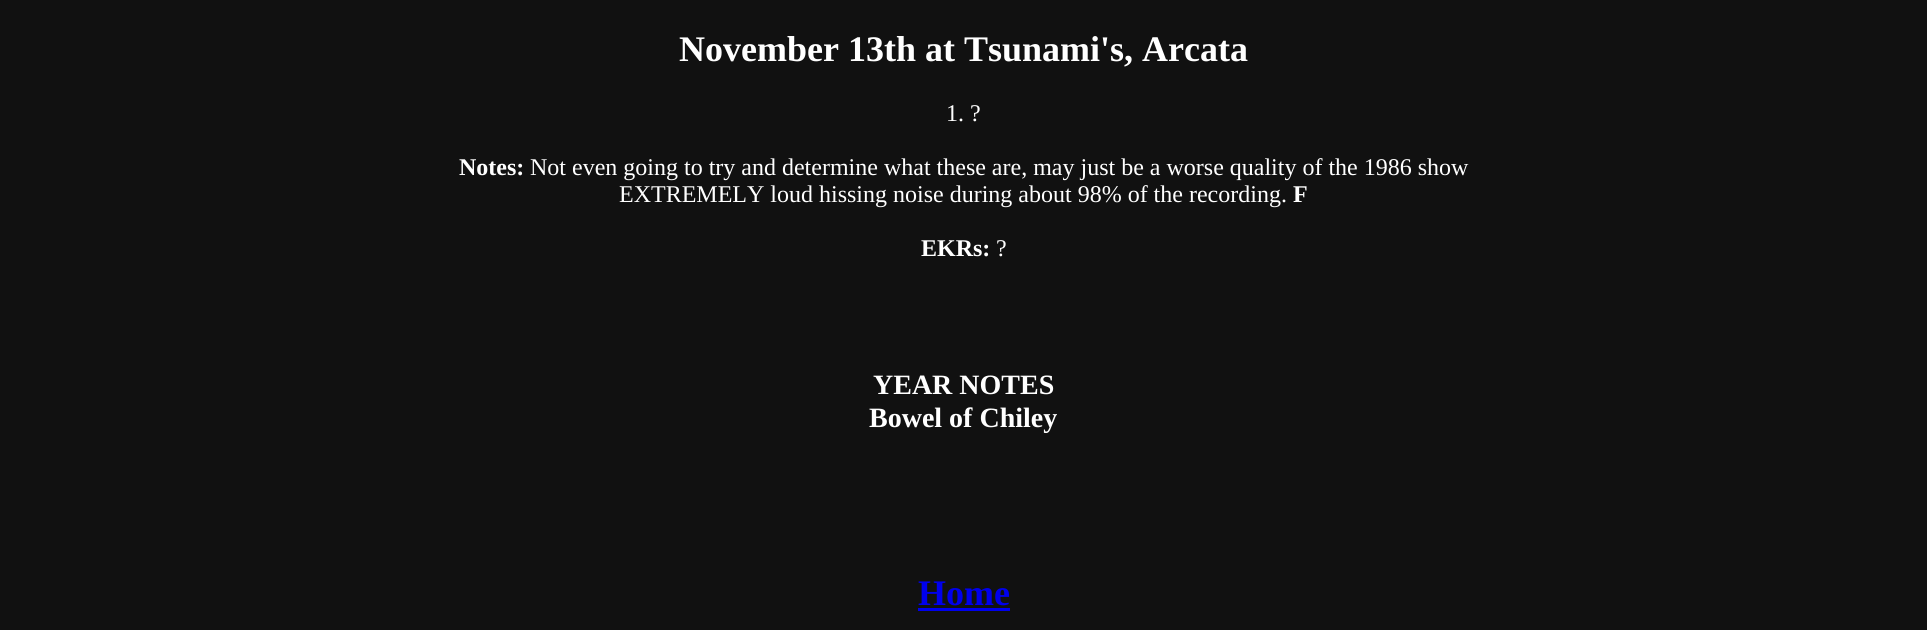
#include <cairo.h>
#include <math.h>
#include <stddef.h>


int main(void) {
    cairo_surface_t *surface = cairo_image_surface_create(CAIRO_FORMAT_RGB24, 1927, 630);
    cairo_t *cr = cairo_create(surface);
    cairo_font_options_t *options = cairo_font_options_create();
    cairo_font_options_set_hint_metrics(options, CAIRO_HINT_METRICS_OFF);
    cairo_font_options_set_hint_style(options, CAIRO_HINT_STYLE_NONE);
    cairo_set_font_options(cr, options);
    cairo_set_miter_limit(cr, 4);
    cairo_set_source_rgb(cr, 0.067, 0.067, 0.067);
    cairo_paint(cr);
    cairo_select_font_face(cr, "Liberation Serif", CAIRO_FONT_SLANT_NORMAL, CAIRO_FONT_WEIGHT_BOLD);
    cairo_set_font_size(cr, 36);
    cairo_set_source_rgb(cr, 1, 1, 1);
    cairo_move_to(cr, 679, 61);
    cairo_show_text(cr, "November 13th at Tsunami's, Arcata");
    cairo_select_font_face(cr, "Liberation Serif", CAIRO_FONT_SLANT_NORMAL, CAIRO_FONT_WEIGHT_NORMAL);
    cairo_set_font_size(cr, 24);
    cairo_move_to(cr, 946, 121);
    cairo_show_text(cr, "1. ?");
    cairo_select_font_face(cr, "Liberation Serif", CAIRO_FONT_SLANT_NORMAL, CAIRO_FONT_WEIGHT_BOLD);
    cairo_move_to(cr, 459, 175);
    cairo_show_text(cr, "Notes:");
    cairo_select_font_face(cr, "Liberation Serif", CAIRO_FONT_SLANT_NORMAL, CAIRO_FONT_WEIGHT_NORMAL);
    cairo_move_to(cr, 530, 175);
    cairo_show_text(cr, "Not even going to try and determine what these are, may just be a worse quality of the 1986 show");
    cairo_move_to(cr, 619, 202);
    cairo_show_text(cr, "EXTREMELY loud hissing noise during about 98% of the recording.");
    cairo_select_font_face(cr, "Liberation Serif", CAIRO_FONT_SLANT_NORMAL, CAIRO_FONT_WEIGHT_BOLD);
    cairo_move_to(cr, 1293, 202);
    cairo_show_text(cr, "F");
    cairo_move_to(cr, 921, 256);
    cairo_show_text(cr, "EKRs:");
    cairo_select_font_face(cr, "Liberation Serif", CAIRO_FONT_SLANT_NORMAL, CAIRO_FONT_WEIGHT_NORMAL);
    cairo_move_to(cr, 996, 256);
    cairo_show_text(cr, "?");
    cairo_select_font_face(cr, "Liberation Serif", CAIRO_FONT_SLANT_NORMAL, CAIRO_FONT_WEIGHT_BOLD);
    cairo_set_font_size(cr, 28);
    cairo_move_to(cr, 873, 394);
    cairo_show_text(cr, "YEAR NOTES");
    cairo_move_to(cr, 869, 427);
    cairo_show_text(cr, "Bowel of Chiley");
    cairo_set_font_size(cr, 36);
    cairo_set_source_rgb(cr, 0, 0, 0.933);
    cairo_move_to(cr, 918, 605);
    cairo_show_text(cr, "Home");
    cairo_rectangle(cr, 918, 608, 92, 3);
    cairo_fill(cr);
    cairo_surface_write_to_png(surface, "page.png");
    cairo_font_options_destroy(options);
    cairo_destroy(cr);
    cairo_surface_destroy(surface);
    return 0;
}
